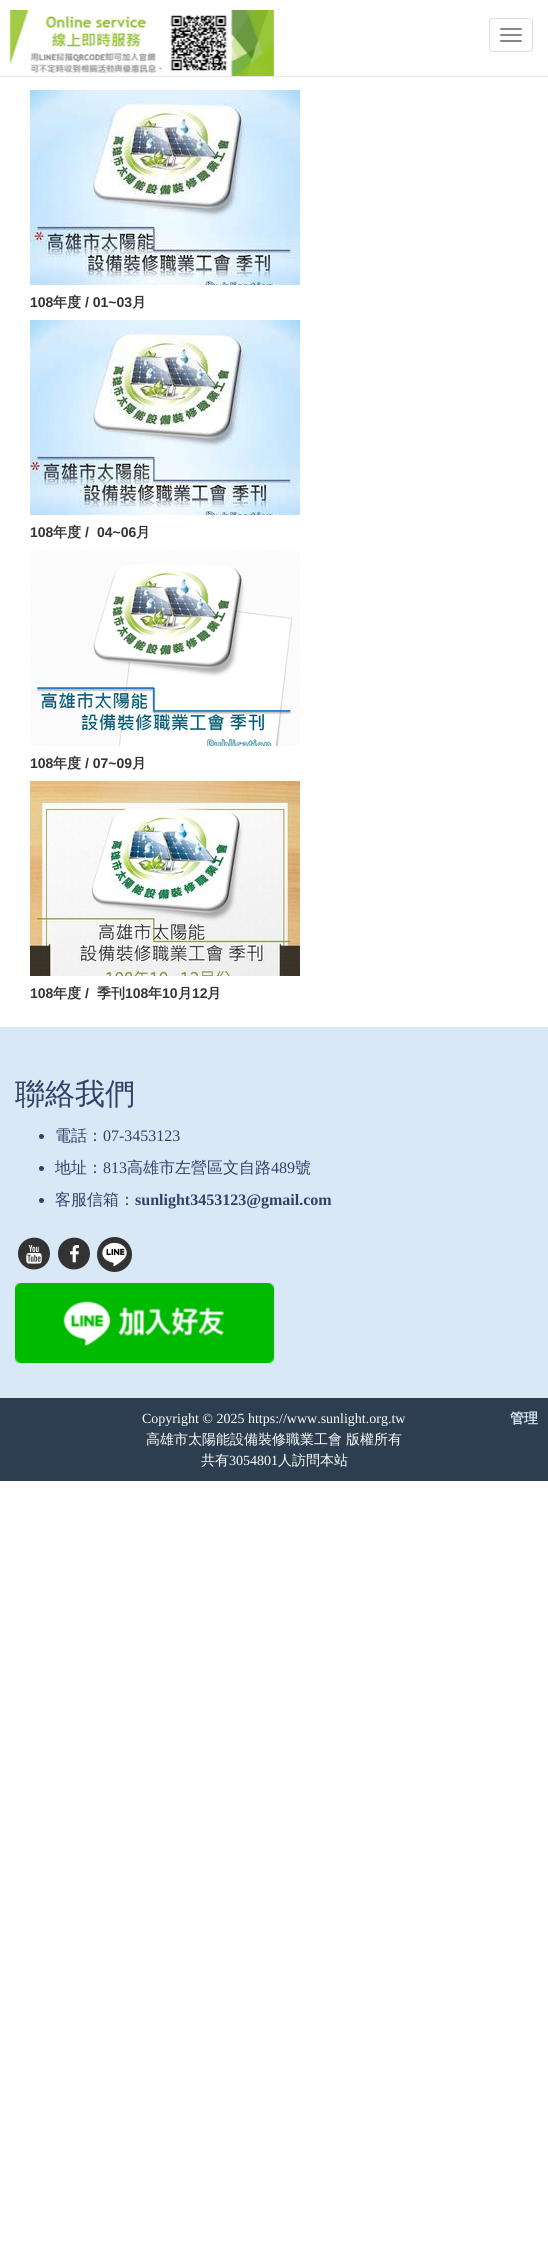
#include <cairo.h>
#include <math.h>
#include <stddef.h>


static void round_rect(cairo_t *cr, double x, double y, double w, double h, double r) {
    cairo_new_sub_path(cr);
    cairo_arc(cr, x + w - r, y + h - r, r, 0, M_PI / 2);
    cairo_arc(cr, x + r, y + h - r, r, M_PI / 2, M_PI);
    cairo_arc(cr, x + r, y + r, r, M_PI, 1.5 * M_PI);
    cairo_arc(cr, x + w - r, y + r, r, 1.5 * M_PI, 2 * M_PI);
    cairo_close_path(cr);
}

static void picture(cairo_t *cr, const char *path, double x, double y, double w, double h) {
    cairo_surface_t *image = cairo_image_surface_create_from_png(path);
    cairo_save(cr);
    cairo_set_source_surface(cr, image, x, y);
    cairo_rectangle(cr, x, y, w, h);
    cairo_fill(cr);
    cairo_restore(cr);
    cairo_surface_destroy(image);
}

int main(void) {
    cairo_surface_t *surface = cairo_image_surface_create(CAIRO_FORMAT_RGB24, 548, 2265);
    cairo_t *cr = cairo_create(surface);
    cairo_font_options_t *options = cairo_font_options_create();
    cairo_font_options_set_hint_metrics(options, CAIRO_HINT_METRICS_OFF);
    cairo_font_options_set_hint_style(options, CAIRO_HINT_STYLE_NONE);
    cairo_set_font_options(cr, options);
    cairo_set_miter_limit(cr, 4);
    cairo_set_source_rgb(cr, 1, 1, 1);
    cairo_paint(cr);
    cairo_set_source_rgb(cr, 0.906, 0.906, 0.906);
    cairo_rectangle(cr, 0, 76, 548, 1);
    cairo_fill(cr);
    picture(cr, "img1.png", 9, 10, 265, 66);
    round_rect(cr, 489.5, 18.5, 43, 33, 3.5);
    cairo_set_source_rgb(cr, 0.867, 0.867, 0.867);
    cairo_set_line_width(cr, 1);
    cairo_stroke(cr);
    cairo_set_source_rgb(cr, 0.533, 0.533, 0.533);
    round_rect(cr, 500, 28, 22, 2, 1);
    cairo_fill(cr);
    round_rect(cr, 500, 34, 22, 2, 1);
    cairo_fill(cr);
    round_rect(cr, 500, 40, 22, 2, 1);
    cairo_fill(cr);
    picture(cr, "img2.png", 30, 90, 270, 195);
    cairo_select_font_face(cr, "Liberation Sans", CAIRO_FONT_SLANT_NORMAL, CAIRO_FONT_WEIGHT_BOLD);
    cairo_set_font_size(cr, 14);
    cairo_set_source_rgb(cr, 0.2, 0.2, 0.2);
    cairo_move_to(cr, 30, 307);
    cairo_show_text(cr, "108");
    cairo_select_font_face(cr, "WenQuanYi Zen Hei", CAIRO_FONT_SLANT_NORMAL, CAIRO_FONT_WEIGHT_BOLD);
    cairo_move_to(cr, 53, 307);
    cairo_show_text(cr, "年度");
    cairo_select_font_face(cr, "Liberation Sans", CAIRO_FONT_SLANT_NORMAL, CAIRO_FONT_WEIGHT_BOLD);
    cairo_move_to(cr, 85, 307);
    cairo_show_text(cr, "/ 01~03");
    cairo_select_font_face(cr, "WenQuanYi Zen Hei", CAIRO_FONT_SLANT_NORMAL, CAIRO_FONT_WEIGHT_BOLD);
    cairo_move_to(cr, 132, 307);
    cairo_show_text(cr, "月");
    picture(cr, "img3.png", 30, 320, 270, 195);
    cairo_select_font_face(cr, "Liberation Sans", CAIRO_FONT_SLANT_NORMAL, CAIRO_FONT_WEIGHT_BOLD);
    cairo_move_to(cr, 30, 537);
    cairo_show_text(cr, "108");
    cairo_select_font_face(cr, "WenQuanYi Zen Hei", CAIRO_FONT_SLANT_NORMAL, CAIRO_FONT_WEIGHT_BOLD);
    cairo_move_to(cr, 53, 537);
    cairo_show_text(cr, "年度");
    cairo_select_font_face(cr, "Liberation Sans", CAIRO_FONT_SLANT_NORMAL, CAIRO_FONT_WEIGHT_BOLD);
    cairo_move_to(cr, 85, 537);
    cairo_show_text(cr, "/");
    cairo_move_to(cr, 97, 537);
    cairo_show_text(cr, "04~06");
    cairo_select_font_face(cr, "WenQuanYi Zen Hei", CAIRO_FONT_SLANT_NORMAL, CAIRO_FONT_WEIGHT_BOLD);
    cairo_move_to(cr, 136, 537);
    cairo_show_text(cr, "月");
    picture(cr, "img4.png", 30, 551, 270, 195);
    cairo_select_font_face(cr, "Liberation Sans", CAIRO_FONT_SLANT_NORMAL, CAIRO_FONT_WEIGHT_BOLD);
    cairo_move_to(cr, 30, 768);
    cairo_show_text(cr, "108");
    cairo_select_font_face(cr, "WenQuanYi Zen Hei", CAIRO_FONT_SLANT_NORMAL, CAIRO_FONT_WEIGHT_BOLD);
    cairo_move_to(cr, 53, 768);
    cairo_show_text(cr, "年度");
    cairo_select_font_face(cr, "Liberation Sans", CAIRO_FONT_SLANT_NORMAL, CAIRO_FONT_WEIGHT_BOLD);
    cairo_move_to(cr, 85, 768);
    cairo_show_text(cr, "/ 07~09");
    cairo_select_font_face(cr, "WenQuanYi Zen Hei", CAIRO_FONT_SLANT_NORMAL, CAIRO_FONT_WEIGHT_BOLD);
    cairo_move_to(cr, 132, 768);
    cairo_show_text(cr, "月");
    picture(cr, "img5.png", 30, 781, 270, 195);
    cairo_select_font_face(cr, "Liberation Sans", CAIRO_FONT_SLANT_NORMAL, CAIRO_FONT_WEIGHT_BOLD);
    cairo_move_to(cr, 30, 998);
    cairo_show_text(cr, "108");
    cairo_select_font_face(cr, "WenQuanYi Zen Hei", CAIRO_FONT_SLANT_NORMAL, CAIRO_FONT_WEIGHT_BOLD);
    cairo_move_to(cr, 53, 998);
    cairo_show_text(cr, "年度");
    cairo_select_font_face(cr, "Liberation Sans", CAIRO_FONT_SLANT_NORMAL, CAIRO_FONT_WEIGHT_BOLD);
    cairo_move_to(cr, 85, 998);
    cairo_show_text(cr, "/");
    cairo_select_font_face(cr, "WenQuanYi Zen Hei", CAIRO_FONT_SLANT_NORMAL, CAIRO_FONT_WEIGHT_BOLD);
    cairo_move_to(cr, 97, 998);
    cairo_show_text(cr, "季刊");
    cairo_select_font_face(cr, "Liberation Sans", CAIRO_FONT_SLANT_NORMAL, CAIRO_FONT_WEIGHT_BOLD);
    cairo_move_to(cr, 125, 998);
    cairo_show_text(cr, "108");
    cairo_select_font_face(cr, "WenQuanYi Zen Hei", CAIRO_FONT_SLANT_NORMAL, CAIRO_FONT_WEIGHT_BOLD);
    cairo_move_to(cr, 148, 998);
    cairo_show_text(cr, "年");
    cairo_select_font_face(cr, "Liberation Sans", CAIRO_FONT_SLANT_NORMAL, CAIRO_FONT_WEIGHT_BOLD);
    cairo_move_to(cr, 162, 998);
    cairo_show_text(cr, "10");
    cairo_select_font_face(cr, "WenQuanYi Zen Hei", CAIRO_FONT_SLANT_NORMAL, CAIRO_FONT_WEIGHT_BOLD);
    cairo_move_to(cr, 178, 998);
    cairo_show_text(cr, "月");
    cairo_select_font_face(cr, "Liberation Sans", CAIRO_FONT_SLANT_NORMAL, CAIRO_FONT_WEIGHT_BOLD);
    cairo_move_to(cr, 192, 998);
    cairo_show_text(cr, "12");
    cairo_select_font_face(cr, "WenQuanYi Zen Hei", CAIRO_FONT_SLANT_NORMAL, CAIRO_FONT_WEIGHT_BOLD);
    cairo_move_to(cr, 207, 998);
    cairo_show_text(cr, "月");
    cairo_set_source_rgb(cr, 0.851, 0.91, 0.961);
    cairo_rectangle(cr, 0, 1027, 548, 371);
    cairo_fill(cr);
    cairo_select_font_face(cr, "WenQuanYi Zen Hei Medium", CAIRO_FONT_SLANT_NORMAL, CAIRO_FONT_WEIGHT_NORMAL);
    cairo_set_font_size(cr, 30);
    cairo_set_source_rgb(cr, 0.188, 0.259, 0.412);
    cairo_move_to(cr, 15, 1104);
    cairo_show_text(cr, "聯絡我們");
    cairo_new_path(cr);
    cairo_arc(cr, 41.5, 1136.5, 2.5, 0, 2 * M_PI);
    cairo_fill(cr);
    cairo_set_font_size(cr, 16);
    cairo_move_to(cr, 55, 1141);
    cairo_show_text(cr, "電話：");
    cairo_select_font_face(cr, "Liberation Serif", CAIRO_FONT_SLANT_NORMAL, CAIRO_FONT_WEIGHT_NORMAL);
    cairo_move_to(cr, 103, 1141);
    cairo_show_text(cr, "07-3453123");
    cairo_new_path(cr);
    cairo_arc(cr, 41.5, 1168.5, 2.5, 0, 2 * M_PI);
    cairo_fill(cr);
    cairo_select_font_face(cr, "WenQuanYi Zen Hei Medium", CAIRO_FONT_SLANT_NORMAL, CAIRO_FONT_WEIGHT_NORMAL);
    cairo_move_to(cr, 55, 1173);
    cairo_show_text(cr, "地址：");
    cairo_select_font_face(cr, "Liberation Serif", CAIRO_FONT_SLANT_NORMAL, CAIRO_FONT_WEIGHT_NORMAL);
    cairo_move_to(cr, 103, 1173);
    cairo_show_text(cr, "813");
    cairo_select_font_face(cr, "WenQuanYi Zen Hei Medium", CAIRO_FONT_SLANT_NORMAL, CAIRO_FONT_WEIGHT_NORMAL);
    cairo_move_to(cr, 127, 1173);
    cairo_show_text(cr, "高雄市左營區文自路");
    cairo_select_font_face(cr, "Liberation Serif", CAIRO_FONT_SLANT_NORMAL, CAIRO_FONT_WEIGHT_NORMAL);
    cairo_move_to(cr, 271, 1173);
    cairo_show_text(cr, "489");
    cairo_select_font_face(cr, "WenQuanYi Zen Hei Medium", CAIRO_FONT_SLANT_NORMAL, CAIRO_FONT_WEIGHT_NORMAL);
    cairo_move_to(cr, 295, 1173);
    cairo_show_text(cr, "號");
    cairo_new_path(cr);
    cairo_arc(cr, 41.5, 1200.5, 2.5, 0, 2 * M_PI);
    cairo_fill(cr);
    cairo_move_to(cr, 55, 1205);
    cairo_show_text(cr, "客服信箱：");
    cairo_select_font_face(cr, "Liberation Serif", CAIRO_FONT_SLANT_NORMAL, CAIRO_FONT_WEIGHT_BOLD);
    cairo_move_to(cr, 135, 1205);
    cairo_show_text(cr, "sunlight3453123@gmail.com");
    cairo_set_source_rgb(cr, 0.2, 0.2, 0.2);
    cairo_new_path(cr);
    cairo_move_to(cr, 48, 1245.5);
    cairo_curve_to(cr, 49.5, 1248.5, 50, 1251.5, 50, 1254.5);
    cairo_curve_to(cr, 49, 1270.5, 28, 1275, 20, 1261.5);
    cairo_curve_to(cr, 18.5, 1259, 18, 1256, 18, 1252.5);
    cairo_curve_to(cr, 19, 1237, 40, 1232, 48, 1245.5);
    cairo_close_path(cr);
    cairo_fill(cr);
    picture(cr, "img6.png", 26, 1245, 16, 19);
    cairo_new_path(cr);
    cairo_move_to(cr, 88, 1245.5);
    cairo_curve_to(cr, 89.5, 1248.5, 90, 1251.5, 90, 1254.5);
    cairo_curve_to(cr, 89, 1270.5, 68, 1275, 60, 1261.5);
    cairo_curve_to(cr, 58.5, 1259, 58, 1256, 58, 1252.5);
    cairo_curve_to(cr, 59, 1237, 80, 1232, 88, 1245.5);
    cairo_close_path(cr);
    cairo_fill(cr);
    picture(cr, "img7.png", 70, 1245, 9, 18);
    picture(cr, "img8.png", 97, 1237, 35, 35);
    picture(cr, "img9.png", 15, 1283, 259, 80);
    cairo_set_source_rgb(cr, 0.173, 0.243, 0.314);
    cairo_rectangle(cr, 0, 1398, 548, 83);
    cairo_fill(cr);
    cairo_select_font_face(cr, "Liberation Serif", CAIRO_FONT_SLANT_NORMAL, CAIRO_FONT_WEIGHT_NORMAL);
    cairo_set_font_size(cr, 14);
    cairo_set_source_rgb(cr, 1, 1, 1);
    cairo_move_to(cr, 142, 1423);
    cairo_show_text(cr, "Copyright © 2025 https://www.sunlight.org.tw");
    cairo_select_font_face(cr, "WenQuanYi Zen Hei Medium", CAIRO_FONT_SLANT_NORMAL, CAIRO_FONT_WEIGHT_NORMAL);
    cairo_move_to(cr, 146, 1444);
    cairo_show_text(cr, "高雄市太陽能設備裝修職業工會");
    cairo_move_to(cr, 346, 1444);
    cairo_show_text(cr, "版權所有");
    cairo_move_to(cr, 201, 1465);
    cairo_show_text(cr, "共有");
    cairo_select_font_face(cr, "Liberation Serif", CAIRO_FONT_SLANT_NORMAL, CAIRO_FONT_WEIGHT_NORMAL);
    cairo_move_to(cr, 229, 1465);
    cairo_show_text(cr, "3054801");
    cairo_select_font_face(cr, "WenQuanYi Zen Hei Medium", CAIRO_FONT_SLANT_NORMAL, CAIRO_FONT_WEIGHT_NORMAL);
    cairo_move_to(cr, 278, 1465);
    cairo_show_text(cr, "人訪問本站");
    cairo_select_font_face(cr, "WenQuanYi Zen Hei", CAIRO_FONT_SLANT_NORMAL, CAIRO_FONT_WEIGHT_BOLD);
    cairo_set_source_rgb(cr, 0.851, 0.91, 0.961);
    cairo_move_to(cr, 510, 1423);
    cairo_show_text(cr, "管理");
    cairo_surface_write_to_png(surface, "page.png");
    cairo_font_options_destroy(options);
    cairo_destroy(cr);
    cairo_surface_destroy(surface);
    return 0;
}
